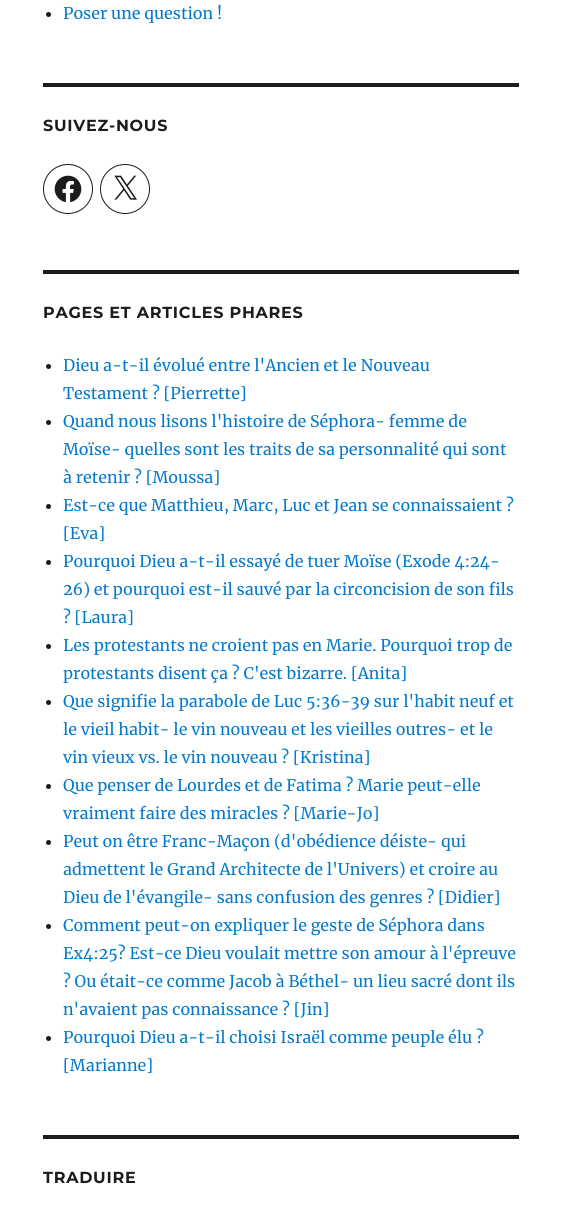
#include <cairo.h>
#include <math.h>
#include <stddef.h>


static void spaced_text(cairo_t *cr, double x, double y, const char *s, double letter, double word) {
    cairo_move_to(cr, x, y);
    while (*s) {
        char ch[5] = {0};
        int n = 0;
        do ch[n++] = *s++; while ((*s & 0xC0) == 0x80);
        cairo_show_text(cr, ch);
        cairo_rel_move_to(cr, letter + word * (*ch == ' '), 0);
    }
}

static void picture(cairo_t *cr, const char *path, double x, double y, double w, double h) {
    cairo_surface_t *image = cairo_image_surface_create_from_png(path);
    cairo_save(cr);
    cairo_set_source_surface(cr, image, x, y);
    cairo_rectangle(cr, x, y, w, h);
    cairo_fill(cr);
    cairo_restore(cr);
    cairo_surface_destroy(image);
}

int main(void) {
    cairo_surface_t *surface = cairo_image_surface_create(CAIRO_FORMAT_RGB24, 562, 1215);
    cairo_t *cr = cairo_create(surface);
    cairo_font_options_t *options = cairo_font_options_create();
    cairo_font_options_set_hint_metrics(options, CAIRO_HINT_METRICS_OFF);
    cairo_font_options_set_hint_style(options, CAIRO_HINT_STYLE_NONE);
    cairo_set_font_options(cr, options);
    cairo_set_miter_limit(cr, 4);
    cairo_set_source_rgb(cr, 1, 1, 1);
    cairo_paint(cr);
    cairo_set_source_rgb(cr, 0.11, 0.11, 0.11);
    cairo_arc(cr, 48.5, 14.5, 2.5, 0, 2 * M_PI);
    cairo_fill(cr);
    cairo_select_font_face(cr, "Merriweather", CAIRO_FONT_SLANT_NORMAL, CAIRO_FONT_WEIGHT_NORMAL);
    cairo_set_font_size(cr, 16);
    cairo_set_source_rgb(cr, 0, 0.478, 0.8);
    cairo_move_to(cr, 63, 19);
    cairo_show_text(cr, "Poser une question !");
    cairo_set_source_rgb(cr, 0.11, 0.11, 0.11);
    cairo_rectangle(cr, 43, 83, 476, 4);
    cairo_fill(cr);
    cairo_select_font_face(cr, "Montserrat Thin", CAIRO_FONT_SLANT_NORMAL, CAIRO_FONT_WEIGHT_NORMAL);
    spaced_text(cr, 43, 131, "SUIVEZ-NOUS", 0.75, 0);
    cairo_new_path(cr);
    cairo_arc(cr, 68, 189, 24.5, 0, 2 * M_PI);
    cairo_set_line_width(cr, 1);
    cairo_stroke(cr);
    picture(cr, "img1.png", 54, 175, 28, 28);
    cairo_arc(cr, 125, 189, 24.5, 0, 2 * M_PI);
    cairo_stroke(cr);
    picture(cr, "img2.png", 114, 175, 23, 25);
    cairo_rectangle(cr, 43, 270, 476, 4);
    cairo_fill(cr);
    spaced_text(cr, 43, 318, "PAGES ET ARTICLES PHARES", 0.75, 0);
    cairo_new_path(cr);
    cairo_arc(cr, 48.5, 366.5, 2.5, 0, 2 * M_PI);
    cairo_fill(cr);
    cairo_select_font_face(cr, "Merriweather", CAIRO_FONT_SLANT_NORMAL, CAIRO_FONT_WEIGHT_NORMAL);
    cairo_set_source_rgb(cr, 0, 0.478, 0.8);
    cairo_move_to(cr, 63, 371);
    cairo_show_text(cr, "Dieu a-t-il évolué entre l'Ancien et le Nouveau");
    cairo_move_to(cr, 63, 399);
    cairo_show_text(cr, "Testament ? [Pierrette]");
    cairo_set_source_rgb(cr, 0.11, 0.11, 0.11);
    cairo_new_path(cr);
    cairo_arc(cr, 48.5, 422.5, 2.5, 0, 2 * M_PI);
    cairo_fill(cr);
    cairo_set_source_rgb(cr, 0, 0.478, 0.8);
    cairo_move_to(cr, 63, 427);
    cairo_show_text(cr, "Quand nous lisons l'histoire de Séphora- femme de");
    cairo_move_to(cr, 63, 455);
    cairo_show_text(cr, "Moïse- quelles sont les traits de sa personnalité qui sont");
    cairo_move_to(cr, 63, 483);
    cairo_show_text(cr, "à retenir ? [Moussa]");
    cairo_set_source_rgb(cr, 0.11, 0.11, 0.11);
    cairo_new_path(cr);
    cairo_arc(cr, 48.5, 506.5, 2.5, 0, 2 * M_PI);
    cairo_fill(cr);
    cairo_set_source_rgb(cr, 0, 0.478, 0.8);
    cairo_move_to(cr, 63, 511);
    cairo_show_text(cr, "Est-ce que Matthieu, Marc, Luc et Jean se connaissaient ?");
    cairo_move_to(cr, 63, 539);
    cairo_show_text(cr, "[Eva]");
    cairo_set_source_rgb(cr, 0.11, 0.11, 0.11);
    cairo_new_path(cr);
    cairo_arc(cr, 48.5, 562.5, 2.5, 0, 2 * M_PI);
    cairo_fill(cr);
    cairo_set_source_rgb(cr, 0, 0.478, 0.8);
    cairo_move_to(cr, 63, 567);
    cairo_show_text(cr, "Pourquoi Dieu a-t-il essayé de tuer Moïse (Exode 4:24-");
    cairo_move_to(cr, 63, 595);
    cairo_show_text(cr, "26) et pourquoi est-il sauvé par la circoncision de son fils");
    cairo_move_to(cr, 63, 623);
    cairo_show_text(cr, "? [Laura]");
    cairo_set_source_rgb(cr, 0.11, 0.11, 0.11);
    cairo_new_path(cr);
    cairo_arc(cr, 48.5, 646.5, 2.5, 0, 2 * M_PI);
    cairo_fill(cr);
    cairo_set_source_rgb(cr, 0, 0.478, 0.8);
    cairo_move_to(cr, 63, 651);
    cairo_show_text(cr, "Les protestants ne croient pas en Marie. Pourquoi trop de");
    cairo_move_to(cr, 63, 679);
    cairo_show_text(cr, "protestants disent ça ? C'est bizarre. [Anita]");
    cairo_set_source_rgb(cr, 0.11, 0.11, 0.11);
    cairo_new_path(cr);
    cairo_arc(cr, 48.5, 702.5, 2.5, 0, 2 * M_PI);
    cairo_fill(cr);
    cairo_set_source_rgb(cr, 0, 0.478, 0.8);
    cairo_move_to(cr, 63, 707);
    cairo_show_text(cr, "Que signifie la parabole de Luc 5:36-39 sur l'habit neuf et");
    cairo_move_to(cr, 63, 735);
    cairo_show_text(cr, "le vieil habit- le vin nouveau et les vieilles outres- et le");
    cairo_move_to(cr, 63, 763);
    cairo_show_text(cr, "vin vieux vs. le vin nouveau ? [Kristina]");
    cairo_set_source_rgb(cr, 0.11, 0.11, 0.11);
    cairo_new_path(cr);
    cairo_arc(cr, 48.5, 786.5, 2.5, 0, 2 * M_PI);
    cairo_fill(cr);
    cairo_set_source_rgb(cr, 0, 0.478, 0.8);
    cairo_move_to(cr, 63, 791);
    cairo_show_text(cr, "Que penser de Lourdes et de Fatima ? Marie peut-elle");
    cairo_move_to(cr, 63, 819);
    cairo_show_text(cr, "vraiment faire des miracles ? [Marie-Jo]");
    cairo_set_source_rgb(cr, 0.11, 0.11, 0.11);
    cairo_new_path(cr);
    cairo_arc(cr, 48.5, 842.5, 2.5, 0, 2 * M_PI);
    cairo_fill(cr);
    cairo_set_source_rgb(cr, 0, 0.478, 0.8);
    cairo_move_to(cr, 63, 847);
    cairo_show_text(cr, "Peut on être Franc-Maçon (d'obédience déiste- qui");
    cairo_move_to(cr, 63, 875);
    cairo_show_text(cr, "admettent le Grand Architecte de l'Univers) et croire au");
    cairo_move_to(cr, 63, 903);
    cairo_show_text(cr, "Dieu de l'évangile- sans confusion des genres ? [Didier]");
    cairo_set_source_rgb(cr, 0.11, 0.11, 0.11);
    cairo_new_path(cr);
    cairo_arc(cr, 48.5, 926.5, 2.5, 0, 2 * M_PI);
    cairo_fill(cr);
    cairo_set_source_rgb(cr, 0, 0.478, 0.8);
    cairo_move_to(cr, 63, 931);
    cairo_show_text(cr, "Comment peut-on expliquer le geste de Séphora dans");
    cairo_move_to(cr, 63, 959);
    cairo_show_text(cr, "Ex4:25? Est-ce Dieu voulait mettre son amour à l'épreuve");
    cairo_move_to(cr, 63, 987);
    cairo_show_text(cr, "? Ou était-ce comme Jacob à Béthel- un lieu sacré dont ils");
    cairo_move_to(cr, 63, 1015);
    cairo_show_text(cr, "n'avaient pas connaissance ? [Jin]");
    cairo_set_source_rgb(cr, 0.11, 0.11, 0.11);
    cairo_new_path(cr);
    cairo_arc(cr, 48.5, 1038.5, 2.5, 0, 2 * M_PI);
    cairo_fill(cr);
    cairo_set_source_rgb(cr, 0, 0.478, 0.8);
    cairo_move_to(cr, 63, 1043);
    cairo_show_text(cr, "Pourquoi Dieu a-t-il choisi Israël comme peuple élu ?");
    cairo_move_to(cr, 63, 1071);
    cairo_show_text(cr, "[Marianne]");
    cairo_set_source_rgb(cr, 0.11, 0.11, 0.11);
    cairo_rectangle(cr, 43, 1135, 476, 4);
    cairo_fill(cr);
    cairo_select_font_face(cr, "Montserrat Thin", CAIRO_FONT_SLANT_NORMAL, CAIRO_FONT_WEIGHT_NORMAL);
    spaced_text(cr, 43, 1183, "TRADUIRE", 0.75, 0);
    cairo_surface_write_to_png(surface, "page.png");
    cairo_font_options_destroy(options);
    cairo_destroy(cr);
    cairo_surface_destroy(surface);
    return 0;
}
